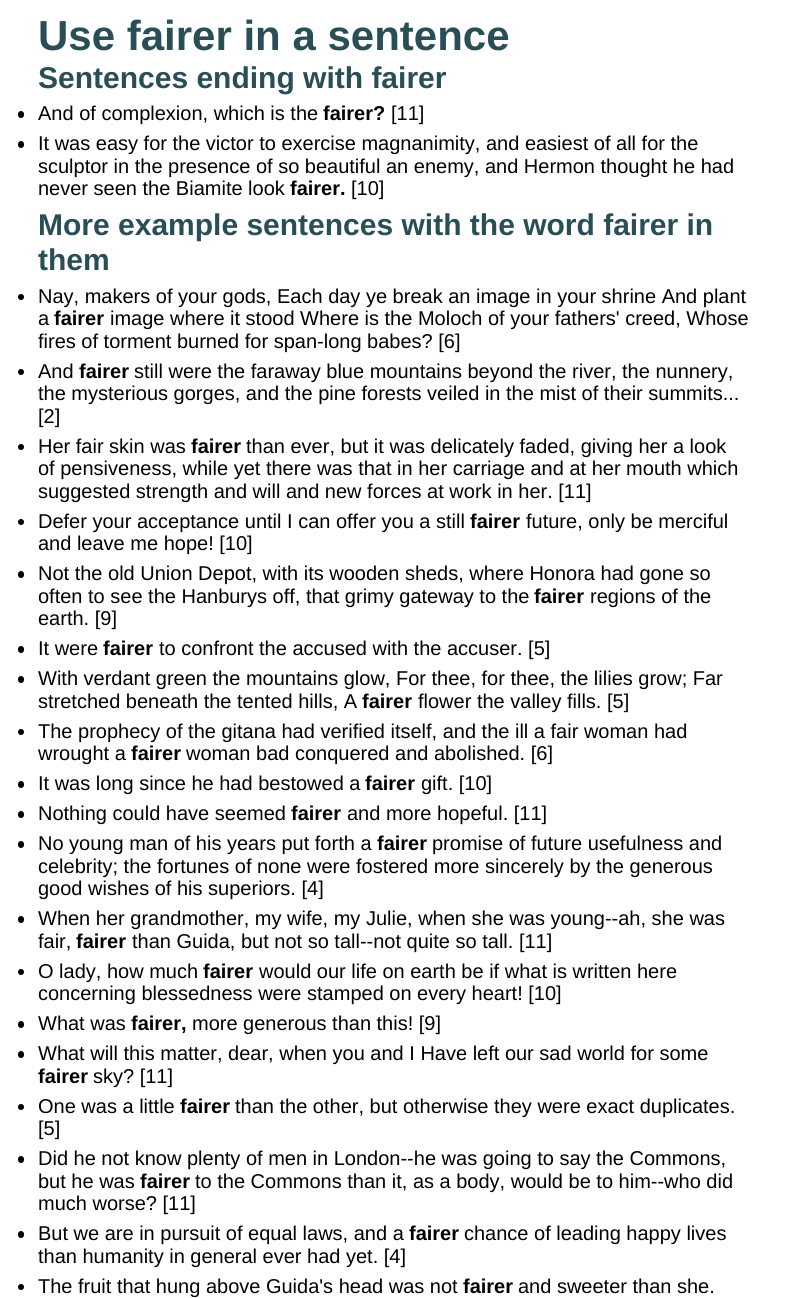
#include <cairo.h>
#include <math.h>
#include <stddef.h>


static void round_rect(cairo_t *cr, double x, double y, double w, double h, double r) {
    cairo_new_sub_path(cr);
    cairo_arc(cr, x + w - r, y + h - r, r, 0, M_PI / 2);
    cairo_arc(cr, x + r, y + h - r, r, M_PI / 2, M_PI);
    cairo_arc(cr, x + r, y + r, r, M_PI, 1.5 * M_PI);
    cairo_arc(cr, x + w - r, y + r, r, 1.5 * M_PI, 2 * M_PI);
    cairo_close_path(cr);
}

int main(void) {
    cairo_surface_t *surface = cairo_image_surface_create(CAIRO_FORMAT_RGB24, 786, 1298);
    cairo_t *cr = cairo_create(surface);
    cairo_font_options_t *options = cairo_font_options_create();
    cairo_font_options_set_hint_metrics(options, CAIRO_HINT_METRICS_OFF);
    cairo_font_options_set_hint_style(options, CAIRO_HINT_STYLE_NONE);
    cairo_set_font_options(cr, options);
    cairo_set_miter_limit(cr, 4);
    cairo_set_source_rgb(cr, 1, 1, 1);
    cairo_paint(cr);
    cairo_select_font_face(cr, "Liberation Sans", CAIRO_FONT_SLANT_NORMAL, CAIRO_FONT_WEIGHT_BOLD);
    cairo_set_font_size(cr, 42);
    cairo_set_source_rgb(cr, 0.161, 0.306, 0.337);
    cairo_move_to(cr, 38, 50);
    cairo_show_text(cr, "Use fairer in a sentence");
    cairo_set_font_size(cr, 30);
    cairo_move_to(cr, 38, 88);
    cairo_show_text(cr, "Sentences ending with fairer");
    cairo_set_source_rgb(cr, 0, 0, 0);
    round_rect(cr, 18, 111, 6, 7, 3);
    cairo_fill(cr);
    cairo_select_font_face(cr, "Liberation Sans", CAIRO_FONT_SLANT_NORMAL, CAIRO_FONT_WEIGHT_NORMAL);
    cairo_set_font_size(cr, 20);
    cairo_move_to(cr, 38, 120);
    cairo_show_text(cr, "And of complexion, which is the");
    cairo_select_font_face(cr, "Liberation Sans", CAIRO_FONT_SLANT_NORMAL, CAIRO_FONT_WEIGHT_BOLD);
    cairo_move_to(cr, 323, 120);
    cairo_show_text(cr, "fairer?");
    cairo_select_font_face(cr, "Liberation Sans", CAIRO_FONT_SLANT_NORMAL, CAIRO_FONT_WEIGHT_NORMAL);
    cairo_move_to(cr, 391, 120);
    cairo_show_text(cr, "[11]");
    round_rect(cr, 18, 141, 6, 7, 3);
    cairo_fill(cr);
    cairo_move_to(cr, 38, 150);
    cairo_show_text(cr, "It was easy for the victor to exercise magnanimity, and easiest of all for the");
    cairo_move_to(cr, 38, 173);
    cairo_show_text(cr, "sculptor in the presence of so beautiful an enemy, and Hermon thought he had");
    cairo_move_to(cr, 38, 195);
    cairo_show_text(cr, "never seen the Biamite look");
    cairo_select_font_face(cr, "Liberation Sans", CAIRO_FONT_SLANT_NORMAL, CAIRO_FONT_WEIGHT_BOLD);
    cairo_move_to(cr, 290, 195);
    cairo_show_text(cr, "fairer.");
    cairo_select_font_face(cr, "Liberation Sans", CAIRO_FONT_SLANT_NORMAL, CAIRO_FONT_WEIGHT_NORMAL);
    cairo_move_to(cr, 351, 195);
    cairo_show_text(cr, "[10]");
    cairo_select_font_face(cr, "Liberation Sans", CAIRO_FONT_SLANT_NORMAL, CAIRO_FONT_WEIGHT_BOLD);
    cairo_set_font_size(cr, 30);
    cairo_set_source_rgb(cr, 0.161, 0.306, 0.337);
    cairo_move_to(cr, 38, 235);
    cairo_show_text(cr, "More example sentences with the word fairer in");
    cairo_save(cr);
    cairo_rectangle(cr, 38, 208, 711, 70);
    cairo_clip(cr);
    cairo_move_to(cr, 38, 270);
    cairo_show_text(cr, "them");
    cairo_restore(cr);
    cairo_set_source_rgb(cr, 0, 0, 0);
    cairo_new_path(cr);
    cairo_arc(cr, 21, 297, 3, 0, 2 * M_PI);
    cairo_fill(cr);
    cairo_select_font_face(cr, "Liberation Sans", CAIRO_FONT_SLANT_NORMAL, CAIRO_FONT_WEIGHT_NORMAL);
    cairo_set_font_size(cr, 20);
    cairo_move_to(cr, 38, 303);
    cairo_show_text(cr, "Nay, makers of your gods, Each day ye break an image in your shrine And plant");
    cairo_move_to(cr, 38, 325);
    cairo_show_text(cr, "a");
    cairo_select_font_face(cr, "Liberation Sans", CAIRO_FONT_SLANT_NORMAL, CAIRO_FONT_WEIGHT_BOLD);
    cairo_move_to(cr, 54, 325);
    cairo_show_text(cr, "fairer");
    cairo_select_font_face(cr, "Liberation Sans", CAIRO_FONT_SLANT_NORMAL, CAIRO_FONT_WEIGHT_NORMAL);
    cairo_move_to(cr, 110, 325);
    cairo_show_text(cr, "image where it stood Where is the Moloch of your fathers' creed, Whose");
    cairo_move_to(cr, 38, 348);
    cairo_show_text(cr, "fires of torment burned for span-long babes? [6]");
    cairo_new_path(cr);
    cairo_arc(cr, 21, 372, 3, 0, 2 * M_PI);
    cairo_fill(cr);
    cairo_move_to(cr, 38, 378);
    cairo_show_text(cr, "And");
    cairo_select_font_face(cr, "Liberation Sans", CAIRO_FONT_SLANT_NORMAL, CAIRO_FONT_WEIGHT_BOLD);
    cairo_move_to(cr, 79, 378);
    cairo_show_text(cr, "fairer");
    cairo_select_font_face(cr, "Liberation Sans", CAIRO_FONT_SLANT_NORMAL, CAIRO_FONT_WEIGHT_NORMAL);
    cairo_move_to(cr, 134, 378);
    cairo_show_text(cr, "still were the faraway blue mountains beyond the river, the nunnery,");
    cairo_move_to(cr, 38, 400);
    cairo_show_text(cr, "the mysterious gorges, and the pine forests veiled in the mist of their summits...");
    cairo_move_to(cr, 38, 423);
    cairo_show_text(cr, "[2]");
    cairo_new_path(cr);
    cairo_arc(cr, 21, 447, 3, 0, 2 * M_PI);
    cairo_fill(cr);
    cairo_move_to(cr, 38, 453);
    cairo_show_text(cr, "Her fair skin was");
    cairo_select_font_face(cr, "Liberation Sans", CAIRO_FONT_SLANT_NORMAL, CAIRO_FONT_WEIGHT_BOLD);
    cairo_move_to(cr, 191, 453);
    cairo_show_text(cr, "fairer");
    cairo_select_font_face(cr, "Liberation Sans", CAIRO_FONT_SLANT_NORMAL, CAIRO_FONT_WEIGHT_NORMAL);
    cairo_move_to(cr, 246, 453);
    cairo_show_text(cr, "than ever, but it was delicately faded, giving her a look");
    cairo_move_to(cr, 38, 475);
    cairo_show_text(cr, "of pensiveness, while yet there was that in her carriage and at her mouth which");
    cairo_move_to(cr, 38, 498);
    cairo_show_text(cr, "suggested strength and will and new forces at work in her. [11]");
    cairo_new_path(cr);
    cairo_arc(cr, 21, 522, 3, 0, 2 * M_PI);
    cairo_fill(cr);
    cairo_move_to(cr, 38, 528);
    cairo_show_text(cr, "Defer your acceptance until I can offer you a still");
    cairo_select_font_face(cr, "Liberation Sans", CAIRO_FONT_SLANT_NORMAL, CAIRO_FONT_WEIGHT_BOLD);
    cairo_move_to(cr, 470, 528);
    cairo_show_text(cr, "fairer");
    cairo_select_font_face(cr, "Liberation Sans", CAIRO_FONT_SLANT_NORMAL, CAIRO_FONT_WEIGHT_NORMAL);
    cairo_move_to(cr, 526, 528);
    cairo_show_text(cr, "future, only be merciful");
    cairo_move_to(cr, 38, 550);
    cairo_show_text(cr, "and leave me hope! [10]");
    round_rect(cr, 18, 571, 6, 7, 3);
    cairo_fill(cr);
    cairo_move_to(cr, 38, 580);
    cairo_show_text(cr, "Not the old Union Depot, with its wooden sheds, where Honora had gone so");
    cairo_move_to(cr, 38, 603);
    cairo_show_text(cr, "often to see the Hanburys off, that grimy gateway to the");
    cairo_select_font_face(cr, "Liberation Sans", CAIRO_FONT_SLANT_NORMAL, CAIRO_FONT_WEIGHT_BOLD);
    cairo_move_to(cr, 534, 603);
    cairo_show_text(cr, "fairer");
    cairo_select_font_face(cr, "Liberation Sans", CAIRO_FONT_SLANT_NORMAL, CAIRO_FONT_WEIGHT_NORMAL);
    cairo_move_to(cr, 590, 603);
    cairo_show_text(cr, "regions of the");
    cairo_move_to(cr, 38, 625);
    cairo_show_text(cr, "earth. [9]");
    round_rect(cr, 18, 646, 6, 7, 3);
    cairo_fill(cr);
    cairo_move_to(cr, 38, 655);
    cairo_show_text(cr, "It were");
    cairo_select_font_face(cr, "Liberation Sans", CAIRO_FONT_SLANT_NORMAL, CAIRO_FONT_WEIGHT_BOLD);
    cairo_move_to(cr, 103, 655);
    cairo_show_text(cr, "fairer");
    cairo_select_font_face(cr, "Liberation Sans", CAIRO_FONT_SLANT_NORMAL, CAIRO_FONT_WEIGHT_NORMAL);
    cairo_move_to(cr, 159, 655);
    cairo_show_text(cr, "to confront the accused with the accuser. [5]");
    round_rect(cr, 18, 676, 6, 7, 3);
    cairo_fill(cr);
    cairo_move_to(cr, 38, 685);
    cairo_show_text(cr, "With verdant green the mountains glow, For thee, for thee, the lilies grow; Far");
    cairo_move_to(cr, 38, 708);
    cairo_show_text(cr, "stretched beneath the tented hills, A");
    cairo_select_font_face(cr, "Liberation Sans", CAIRO_FONT_SLANT_NORMAL, CAIRO_FONT_WEIGHT_BOLD);
    cairo_move_to(cr, 362, 708);
    cairo_show_text(cr, "fairer");
    cairo_select_font_face(cr, "Liberation Sans", CAIRO_FONT_SLANT_NORMAL, CAIRO_FONT_WEIGHT_NORMAL);
    cairo_move_to(cr, 418, 708);
    cairo_show_text(cr, "flower the valley fills. [5]");
    cairo_new_path(cr);
    cairo_arc(cr, 21, 732, 3, 0, 2 * M_PI);
    cairo_fill(cr);
    cairo_move_to(cr, 38, 738);
    cairo_show_text(cr, "The prophecy of the gitana had verified itself, and the ill a fair woman had");
    cairo_move_to(cr, 38, 760);
    cairo_show_text(cr, "wrought a");
    cairo_select_font_face(cr, "Liberation Sans", CAIRO_FONT_SLANT_NORMAL, CAIRO_FONT_WEIGHT_BOLD);
    cairo_move_to(cr, 131, 760);
    cairo_show_text(cr, "fairer");
    cairo_select_font_face(cr, "Liberation Sans", CAIRO_FONT_SLANT_NORMAL, CAIRO_FONT_WEIGHT_NORMAL);
    cairo_move_to(cr, 186, 760);
    cairo_show_text(cr, "woman bad conquered and abolished. [6]");
    round_rect(cr, 18, 781, 6, 7, 3);
    cairo_fill(cr);
    cairo_move_to(cr, 38, 790);
    cairo_show_text(cr, "It was long since he had bestowed a");
    cairo_select_font_face(cr, "Liberation Sans", CAIRO_FONT_SLANT_NORMAL, CAIRO_FONT_WEIGHT_BOLD);
    cairo_move_to(cr, 365, 790);
    cairo_show_text(cr, "fairer");
    cairo_select_font_face(cr, "Liberation Sans", CAIRO_FONT_SLANT_NORMAL, CAIRO_FONT_WEIGHT_NORMAL);
    cairo_move_to(cr, 421, 790);
    cairo_show_text(cr, "gift. [10]");
    round_rect(cr, 18, 811, 6, 7, 3);
    cairo_fill(cr);
    cairo_move_to(cr, 38, 820);
    cairo_show_text(cr, "Nothing could have seemed");
    cairo_select_font_face(cr, "Liberation Sans", CAIRO_FONT_SLANT_NORMAL, CAIRO_FONT_WEIGHT_BOLD);
    cairo_move_to(cr, 291, 820);
    cairo_show_text(cr, "fairer");
    cairo_select_font_face(cr, "Liberation Sans", CAIRO_FONT_SLANT_NORMAL, CAIRO_FONT_WEIGHT_NORMAL);
    cairo_move_to(cr, 347, 820);
    cairo_show_text(cr, "and more hopeful. [11]");
    round_rect(cr, 18, 841, 6, 7, 3);
    cairo_fill(cr);
    cairo_move_to(cr, 38, 850);
    cairo_show_text(cr, "No young man of his years put forth a");
    cairo_select_font_face(cr, "Liberation Sans", CAIRO_FONT_SLANT_NORMAL, CAIRO_FONT_WEIGHT_BOLD);
    cairo_move_to(cr, 377, 850);
    cairo_show_text(cr, "fairer");
    cairo_select_font_face(cr, "Liberation Sans", CAIRO_FONT_SLANT_NORMAL, CAIRO_FONT_WEIGHT_NORMAL);
    cairo_move_to(cr, 432, 850);
    cairo_show_text(cr, "promise of future usefulness and");
    cairo_move_to(cr, 38, 873);
    cairo_show_text(cr, "celebrity; the fortunes of none were fostered more sincerely by the generous");
    cairo_move_to(cr, 38, 895);
    cairo_show_text(cr, "good wishes of his superiors. [4]");
    round_rect(cr, 18, 916, 6, 7, 3);
    cairo_fill(cr);
    cairo_move_to(cr, 38, 925);
    cairo_show_text(cr, "When her grandmother, my wife, my Julie, when she was young--ah, she was");
    cairo_move_to(cr, 38, 948);
    cairo_show_text(cr, "fair,");
    cairo_select_font_face(cr, "Liberation Sans", CAIRO_FONT_SLANT_NORMAL, CAIRO_FONT_WEIGHT_BOLD);
    cairo_move_to(cr, 76, 948);
    cairo_show_text(cr, "fairer");
    cairo_select_font_face(cr, "Liberation Sans", CAIRO_FONT_SLANT_NORMAL, CAIRO_FONT_WEIGHT_NORMAL);
    cairo_move_to(cr, 132, 948);
    cairo_show_text(cr, "than Guida, but not so tall--not quite so tall. [11]");
    cairo_new_path(cr);
    cairo_arc(cr, 21, 972, 3, 0, 2 * M_PI);
    cairo_fill(cr);
    cairo_move_to(cr, 38, 978);
    cairo_show_text(cr, "O lady, how much");
    cairo_select_font_face(cr, "Liberation Sans", CAIRO_FONT_SLANT_NORMAL, CAIRO_FONT_WEIGHT_BOLD);
    cairo_move_to(cr, 203, 978);
    cairo_show_text(cr, "fairer");
    cairo_select_font_face(cr, "Liberation Sans", CAIRO_FONT_SLANT_NORMAL, CAIRO_FONT_WEIGHT_NORMAL);
    cairo_move_to(cr, 259, 978);
    cairo_show_text(cr, "would our life on earth be if what is written here");
    cairo_move_to(cr, 38, 1000);
    cairo_show_text(cr, "concerning blessedness were stamped on every heart! [10]");
    round_rect(cr, 18, 1021, 6, 7, 3);
    cairo_fill(cr);
    cairo_move_to(cr, 38, 1030);
    cairo_show_text(cr, "What was");
    cairo_select_font_face(cr, "Liberation Sans", CAIRO_FONT_SLANT_NORMAL, CAIRO_FONT_WEIGHT_BOLD);
    cairo_move_to(cr, 131, 1030);
    cairo_show_text(cr, "fairer,");
    cairo_select_font_face(cr, "Liberation Sans", CAIRO_FONT_SLANT_NORMAL, CAIRO_FONT_WEIGHT_NORMAL);
    cairo_move_to(cr, 192, 1030);
    cairo_show_text(cr, "more generous than this! [9]");
    round_rect(cr, 18, 1051, 6, 7, 3);
    cairo_fill(cr);
    cairo_move_to(cr, 38, 1060);
    cairo_show_text(cr, "What will this matter, dear, when you and I Have left our sad world for some");
    cairo_select_font_face(cr, "Liberation Sans", CAIRO_FONT_SLANT_NORMAL, CAIRO_FONT_WEIGHT_BOLD);
    cairo_move_to(cr, 38, 1083);
    cairo_show_text(cr, "fairer");
    cairo_select_font_face(cr, "Liberation Sans", CAIRO_FONT_SLANT_NORMAL, CAIRO_FONT_WEIGHT_NORMAL);
    cairo_move_to(cr, 93, 1083);
    cairo_show_text(cr, "sky? [11]");
    cairo_new_path(cr);
    cairo_arc(cr, 21, 1107, 3, 0, 2 * M_PI);
    cairo_fill(cr);
    cairo_move_to(cr, 38, 1113);
    cairo_show_text(cr, "One was a little");
    cairo_select_font_face(cr, "Liberation Sans", CAIRO_FONT_SLANT_NORMAL, CAIRO_FONT_WEIGHT_BOLD);
    cairo_move_to(cr, 180, 1113);
    cairo_show_text(cr, "fairer");
    cairo_select_font_face(cr, "Liberation Sans", CAIRO_FONT_SLANT_NORMAL, CAIRO_FONT_WEIGHT_NORMAL);
    cairo_move_to(cr, 235, 1113);
    cairo_show_text(cr, "than the other, but otherwise they were exact duplicates.");
    cairo_move_to(cr, 38, 1135);
    cairo_show_text(cr, "[5]");
    round_rect(cr, 18, 1156, 6, 7, 3);
    cairo_fill(cr);
    cairo_move_to(cr, 38, 1165);
    cairo_show_text(cr, "Did he not know plenty of men in London--he was going to say the Commons,");
    cairo_move_to(cr, 38, 1188);
    cairo_show_text(cr, "but he was");
    cairo_select_font_face(cr, "Liberation Sans", CAIRO_FONT_SLANT_NORMAL, CAIRO_FONT_WEIGHT_BOLD);
    cairo_move_to(cr, 140, 1188);
    cairo_show_text(cr, "fairer");
    cairo_select_font_face(cr, "Liberation Sans", CAIRO_FONT_SLANT_NORMAL, CAIRO_FONT_WEIGHT_NORMAL);
    cairo_move_to(cr, 195, 1188);
    cairo_show_text(cr, "to the Commons than it, as a body, would be to him--who did");
    cairo_move_to(cr, 38, 1210);
    cairo_show_text(cr, "much worse? [11]");
    round_rect(cr, 18, 1231, 6, 7, 3);
    cairo_fill(cr);
    cairo_move_to(cr, 38, 1240);
    cairo_show_text(cr, "But we are in pursuit of equal laws, and a");
    cairo_select_font_face(cr, "Liberation Sans", CAIRO_FONT_SLANT_NORMAL, CAIRO_FONT_WEIGHT_BOLD);
    cairo_move_to(cr, 409, 1240);
    cairo_show_text(cr, "fairer");
    cairo_select_font_face(cr, "Liberation Sans", CAIRO_FONT_SLANT_NORMAL, CAIRO_FONT_WEIGHT_NORMAL);
    cairo_move_to(cr, 464, 1240);
    cairo_show_text(cr, "chance of leading happy lives");
    cairo_move_to(cr, 38, 1263);
    cairo_show_text(cr, "than humanity in general ever had yet. [4]");
    cairo_new_path(cr);
    cairo_arc(cr, 21, 1287, 3, 0, 2 * M_PI);
    cairo_fill(cr);
    cairo_move_to(cr, 38, 1293);
    cairo_show_text(cr, "The fruit that hung above Guida's head was not");
    cairo_select_font_face(cr, "Liberation Sans", CAIRO_FONT_SLANT_NORMAL, CAIRO_FONT_WEIGHT_BOLD);
    cairo_move_to(cr, 463, 1293);
    cairo_show_text(cr, "fairer");
    cairo_select_font_face(cr, "Liberation Sans", CAIRO_FONT_SLANT_NORMAL, CAIRO_FONT_WEIGHT_NORMAL);
    cairo_move_to(cr, 518, 1293);
    cairo_show_text(cr, "and sweeter than she.");
    cairo_surface_write_to_png(surface, "page.png");
    cairo_font_options_destroy(options);
    cairo_destroy(cr);
    cairo_surface_destroy(surface);
    return 0;
}
